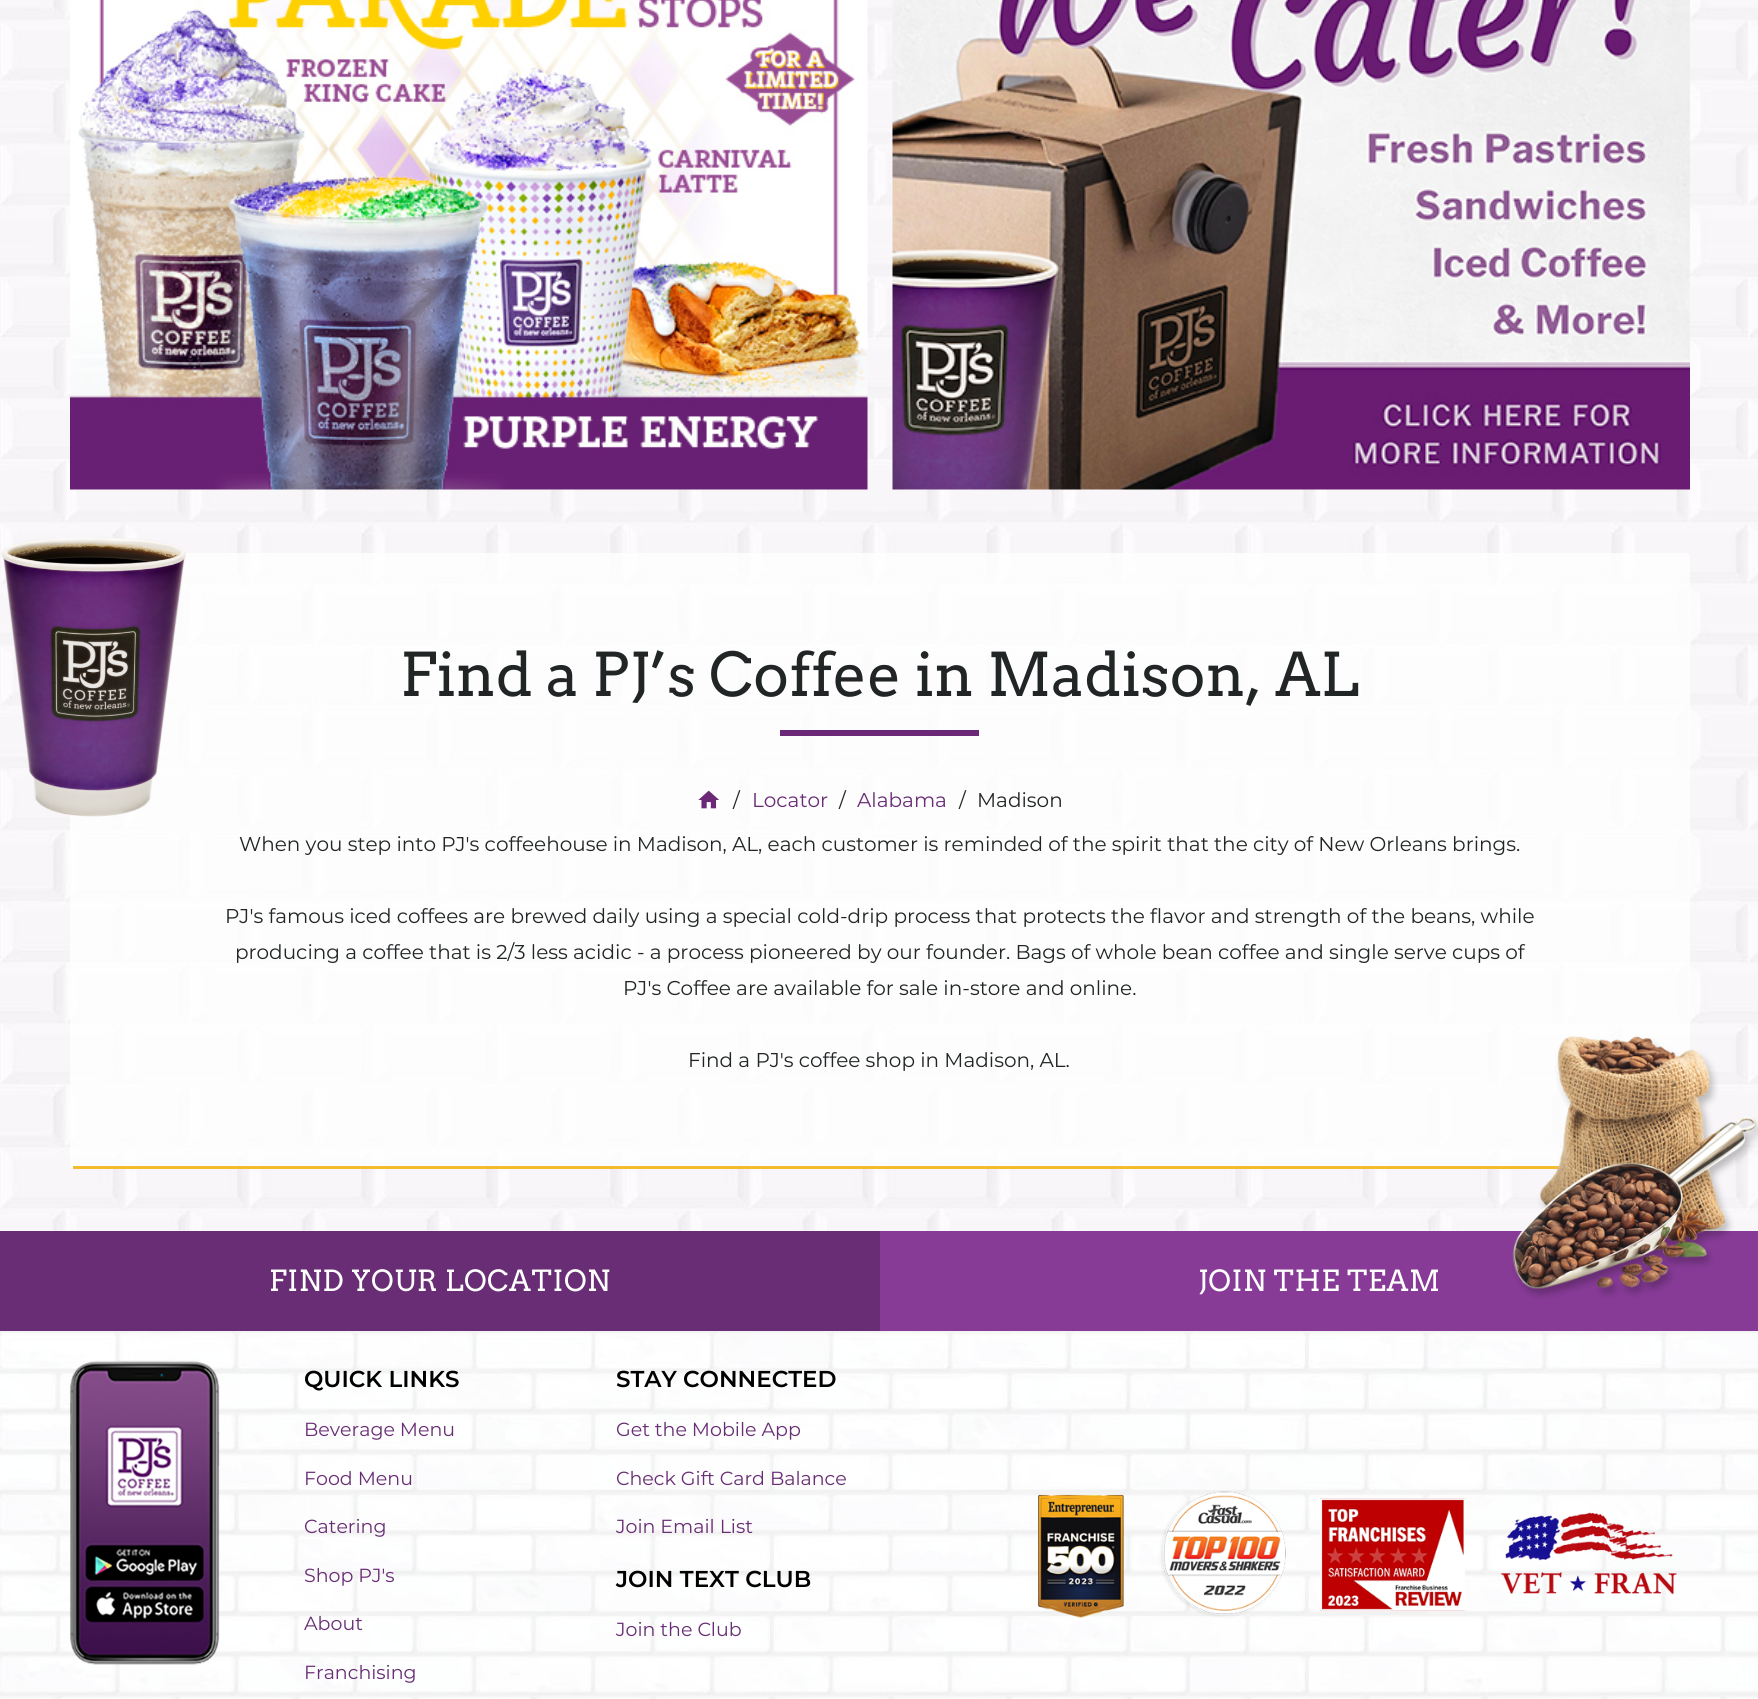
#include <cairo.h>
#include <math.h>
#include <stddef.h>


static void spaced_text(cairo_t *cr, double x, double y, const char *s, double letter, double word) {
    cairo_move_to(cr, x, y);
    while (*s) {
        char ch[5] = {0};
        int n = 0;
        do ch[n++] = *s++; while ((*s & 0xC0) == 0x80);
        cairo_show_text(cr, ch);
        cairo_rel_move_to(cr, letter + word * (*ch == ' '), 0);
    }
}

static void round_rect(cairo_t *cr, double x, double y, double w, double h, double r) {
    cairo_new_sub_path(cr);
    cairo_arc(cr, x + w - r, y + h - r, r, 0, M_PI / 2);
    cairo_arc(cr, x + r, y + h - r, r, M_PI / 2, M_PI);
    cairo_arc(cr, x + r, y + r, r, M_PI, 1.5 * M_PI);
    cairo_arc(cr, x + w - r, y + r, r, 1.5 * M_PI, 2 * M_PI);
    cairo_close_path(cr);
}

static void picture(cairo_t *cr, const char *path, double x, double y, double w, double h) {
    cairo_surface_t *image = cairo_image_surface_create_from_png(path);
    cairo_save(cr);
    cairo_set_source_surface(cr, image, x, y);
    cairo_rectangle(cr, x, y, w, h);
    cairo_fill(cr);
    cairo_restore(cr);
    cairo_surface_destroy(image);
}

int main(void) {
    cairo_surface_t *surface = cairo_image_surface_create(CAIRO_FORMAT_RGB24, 1758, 1699);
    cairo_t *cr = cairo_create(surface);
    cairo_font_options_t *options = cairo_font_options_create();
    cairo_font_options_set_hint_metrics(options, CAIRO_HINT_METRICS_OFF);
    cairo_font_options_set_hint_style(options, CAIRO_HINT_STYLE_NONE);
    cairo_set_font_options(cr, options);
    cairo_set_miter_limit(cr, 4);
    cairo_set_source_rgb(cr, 1, 1, 1);
    cairo_paint(cr);
    picture(cr, "img1.png", 0, 0, 1758, 1231);
    picture(cr, "img2.png", 70, 0, 798, 490);
    picture(cr, "img3.png", 892, 0, 798, 490);
    cairo_set_source_rgba(cr, 1, 1, 1, 0.8);
    round_rect(cr, 70, 553, 1620, 616, 4);
    cairo_fill(cr);
    picture(cr, "img4.png", 1, 537, 185, 280);
    cairo_set_source_rgb(cr, 0.953, 0.733, 0.18);
    cairo_rectangle(cr, 73, 1166, 1487, 3);
    cairo_fill(cr);
    cairo_select_font_face(cr, "Arvo", CAIRO_FONT_SLANT_NORMAL, CAIRO_FONT_WEIGHT_NORMAL);
    cairo_set_font_size(cr, 60);
    cairo_set_source_rgb(cr, 0.129, 0.145, 0.149);
    cairo_move_to(cr, 400, 696);
    cairo_show_text(cr, "Find a PJ’s Coffee in Madison, AL");
    cairo_set_source_rgb(cr, 0.416, 0.157, 0.463);
    cairo_rectangle(cr, 780, 730, 199, 6);
    cairo_fill(cr);
    picture(cr, "img5.png", 698, 790, 21, 19);
    cairo_select_font_face(cr, "Montserrat", CAIRO_FONT_SLANT_NORMAL, CAIRO_FONT_WEIGHT_NORMAL);
    cairo_set_font_size(cr, 20);
    cairo_set_source_rgb(cr, 0.129, 0.145, 0.149);
    cairo_move_to(cr, 733, 807);
    cairo_show_text(cr, "/");
    cairo_set_source_rgb(cr, 0.408, 0.176, 0.455);
    cairo_move_to(cr, 752, 807);
    cairo_show_text(cr, "Locator");
    cairo_set_source_rgb(cr, 0.129, 0.145, 0.149);
    cairo_move_to(cr, 839, 807);
    cairo_show_text(cr, "/");
    cairo_set_source_rgb(cr, 0.408, 0.176, 0.455);
    cairo_move_to(cr, 857, 807);
    cairo_show_text(cr, "Alabama");
    cairo_set_source_rgb(cr, 0.129, 0.145, 0.149);
    cairo_move_to(cr, 959, 807);
    cairo_show_text(cr, "/");
    cairo_move_to(cr, 977, 807);
    cairo_show_text(cr, "Madison");
    cairo_move_to(cr, 239, 851);
    cairo_show_text(cr, "When you step into PJ's coffeehouse in Madison, AL, each customer is reminded of the spirit that the city of New Orleans brings.");
    cairo_move_to(cr, 225, 923);
    cairo_show_text(cr, "PJ's famous iced coffees are brewed daily using a special cold-drip process that protects the flavor and strength of the beans, while");
    cairo_move_to(cr, 235, 959);
    cairo_show_text(cr, "producing a coffee that is 2/3 less acidic - a process pioneered by our founder. Bags of whole bean coffee and single serve cups of");
    cairo_move_to(cr, 623, 995);
    cairo_show_text(cr, "PJ's Coffee are available for sale in-store and online.");
    cairo_move_to(cr, 688, 1067);
    cairo_show_text(cr, "Find a PJ's coffee shop in Madison, AL.");
    cairo_set_source_rgb(cr, 0.529, 0.231, 0.592);
    cairo_rectangle(cr, 880, 1231, 878, 100);
    cairo_fill(cr);
    picture(cr, "img6.png", 1512, 1036, 246, 263);
    cairo_set_source_rgb(cr, 0.408, 0.176, 0.455);
    cairo_rectangle(cr, 0, 1231, 880, 100);
    cairo_fill(cr);
    cairo_select_font_face(cr, "Arvo", CAIRO_FONT_SLANT_NORMAL, CAIRO_FONT_WEIGHT_NORMAL);
    cairo_set_font_size(cr, 29);
    cairo_set_source_rgb(cr, 1, 1, 1);
    spaced_text(cr, 269, 1291, "FIND YOUR LOCATION", 0.6, 0);
    spaced_text(cr, 1198, 1291, "JOIN THE TEAM", 0.6, 0);
    picture(cr, "img7.png", 0, 1331, 1758, 368);
    picture(cr, "img8.png", 70, 1360, 150, 305);
    cairo_select_font_face(cr, "Montserrat SemiBold", CAIRO_FONT_SLANT_NORMAL, CAIRO_FONT_WEIGHT_NORMAL);
    cairo_set_font_size(cr, 23);
    cairo_set_source_rgb(cr, 0, 0, 0);
    cairo_move_to(cr, 304, 1387);
    cairo_show_text(cr, "QUICK LINKS");
    cairo_select_font_face(cr, "Montserrat", CAIRO_FONT_SLANT_NORMAL, CAIRO_FONT_WEIGHT_NORMAL);
    cairo_set_font_size(cr, 19);
    cairo_set_source_rgb(cr, 0.408, 0.176, 0.455);
    cairo_move_to(cr, 304, 1436);
    cairo_show_text(cr, "Beverage Menu");
    cairo_move_to(cr, 304, 1485);
    cairo_show_text(cr, "Food Menu");
    cairo_move_to(cr, 304, 1533);
    cairo_show_text(cr, "Catering");
    cairo_move_to(cr, 304, 1582);
    cairo_show_text(cr, "Shop PJ's");
    cairo_move_to(cr, 304, 1630);
    cairo_show_text(cr, "About");
    cairo_move_to(cr, 304, 1679);
    cairo_show_text(cr, "Franchising");
    cairo_select_font_face(cr, "Montserrat SemiBold", CAIRO_FONT_SLANT_NORMAL, CAIRO_FONT_WEIGHT_NORMAL);
    cairo_set_font_size(cr, 23);
    cairo_set_source_rgb(cr, 0, 0, 0);
    cairo_move_to(cr, 616, 1387);
    cairo_show_text(cr, "STAY CONNECTED");
    cairo_select_font_face(cr, "Montserrat", CAIRO_FONT_SLANT_NORMAL, CAIRO_FONT_WEIGHT_NORMAL);
    cairo_set_font_size(cr, 19);
    cairo_set_source_rgb(cr, 0.408, 0.176, 0.455);
    cairo_move_to(cr, 616, 1436);
    cairo_show_text(cr, "Get the Mobile App");
    cairo_move_to(cr, 616, 1485);
    cairo_show_text(cr, "Check Gift Card Balance");
    cairo_move_to(cr, 616, 1533);
    cairo_show_text(cr, "Join Email List");
    cairo_select_font_face(cr, "Montserrat SemiBold", CAIRO_FONT_SLANT_NORMAL, CAIRO_FONT_WEIGHT_NORMAL);
    cairo_set_font_size(cr, 23);
    cairo_set_source_rgb(cr, 0, 0, 0);
    cairo_move_to(cr, 616, 1587);
    cairo_show_text(cr, "JOIN TEXT CLUB");
    cairo_select_font_face(cr, "Montserrat", CAIRO_FONT_SLANT_NORMAL, CAIRO_FONT_WEIGHT_NORMAL);
    cairo_set_font_size(cr, 19);
    cairo_set_source_rgb(cr, 0.408, 0.176, 0.455);
    cairo_move_to(cr, 616, 1636);
    cairo_show_text(cr, "Join the Club");
    picture(cr, "img9.png", 1038, 1491, 639, 127);
    cairo_surface_write_to_png(surface, "page.png");
    cairo_font_options_destroy(options);
    cairo_destroy(cr);
    cairo_surface_destroy(surface);
    return 0;
}
